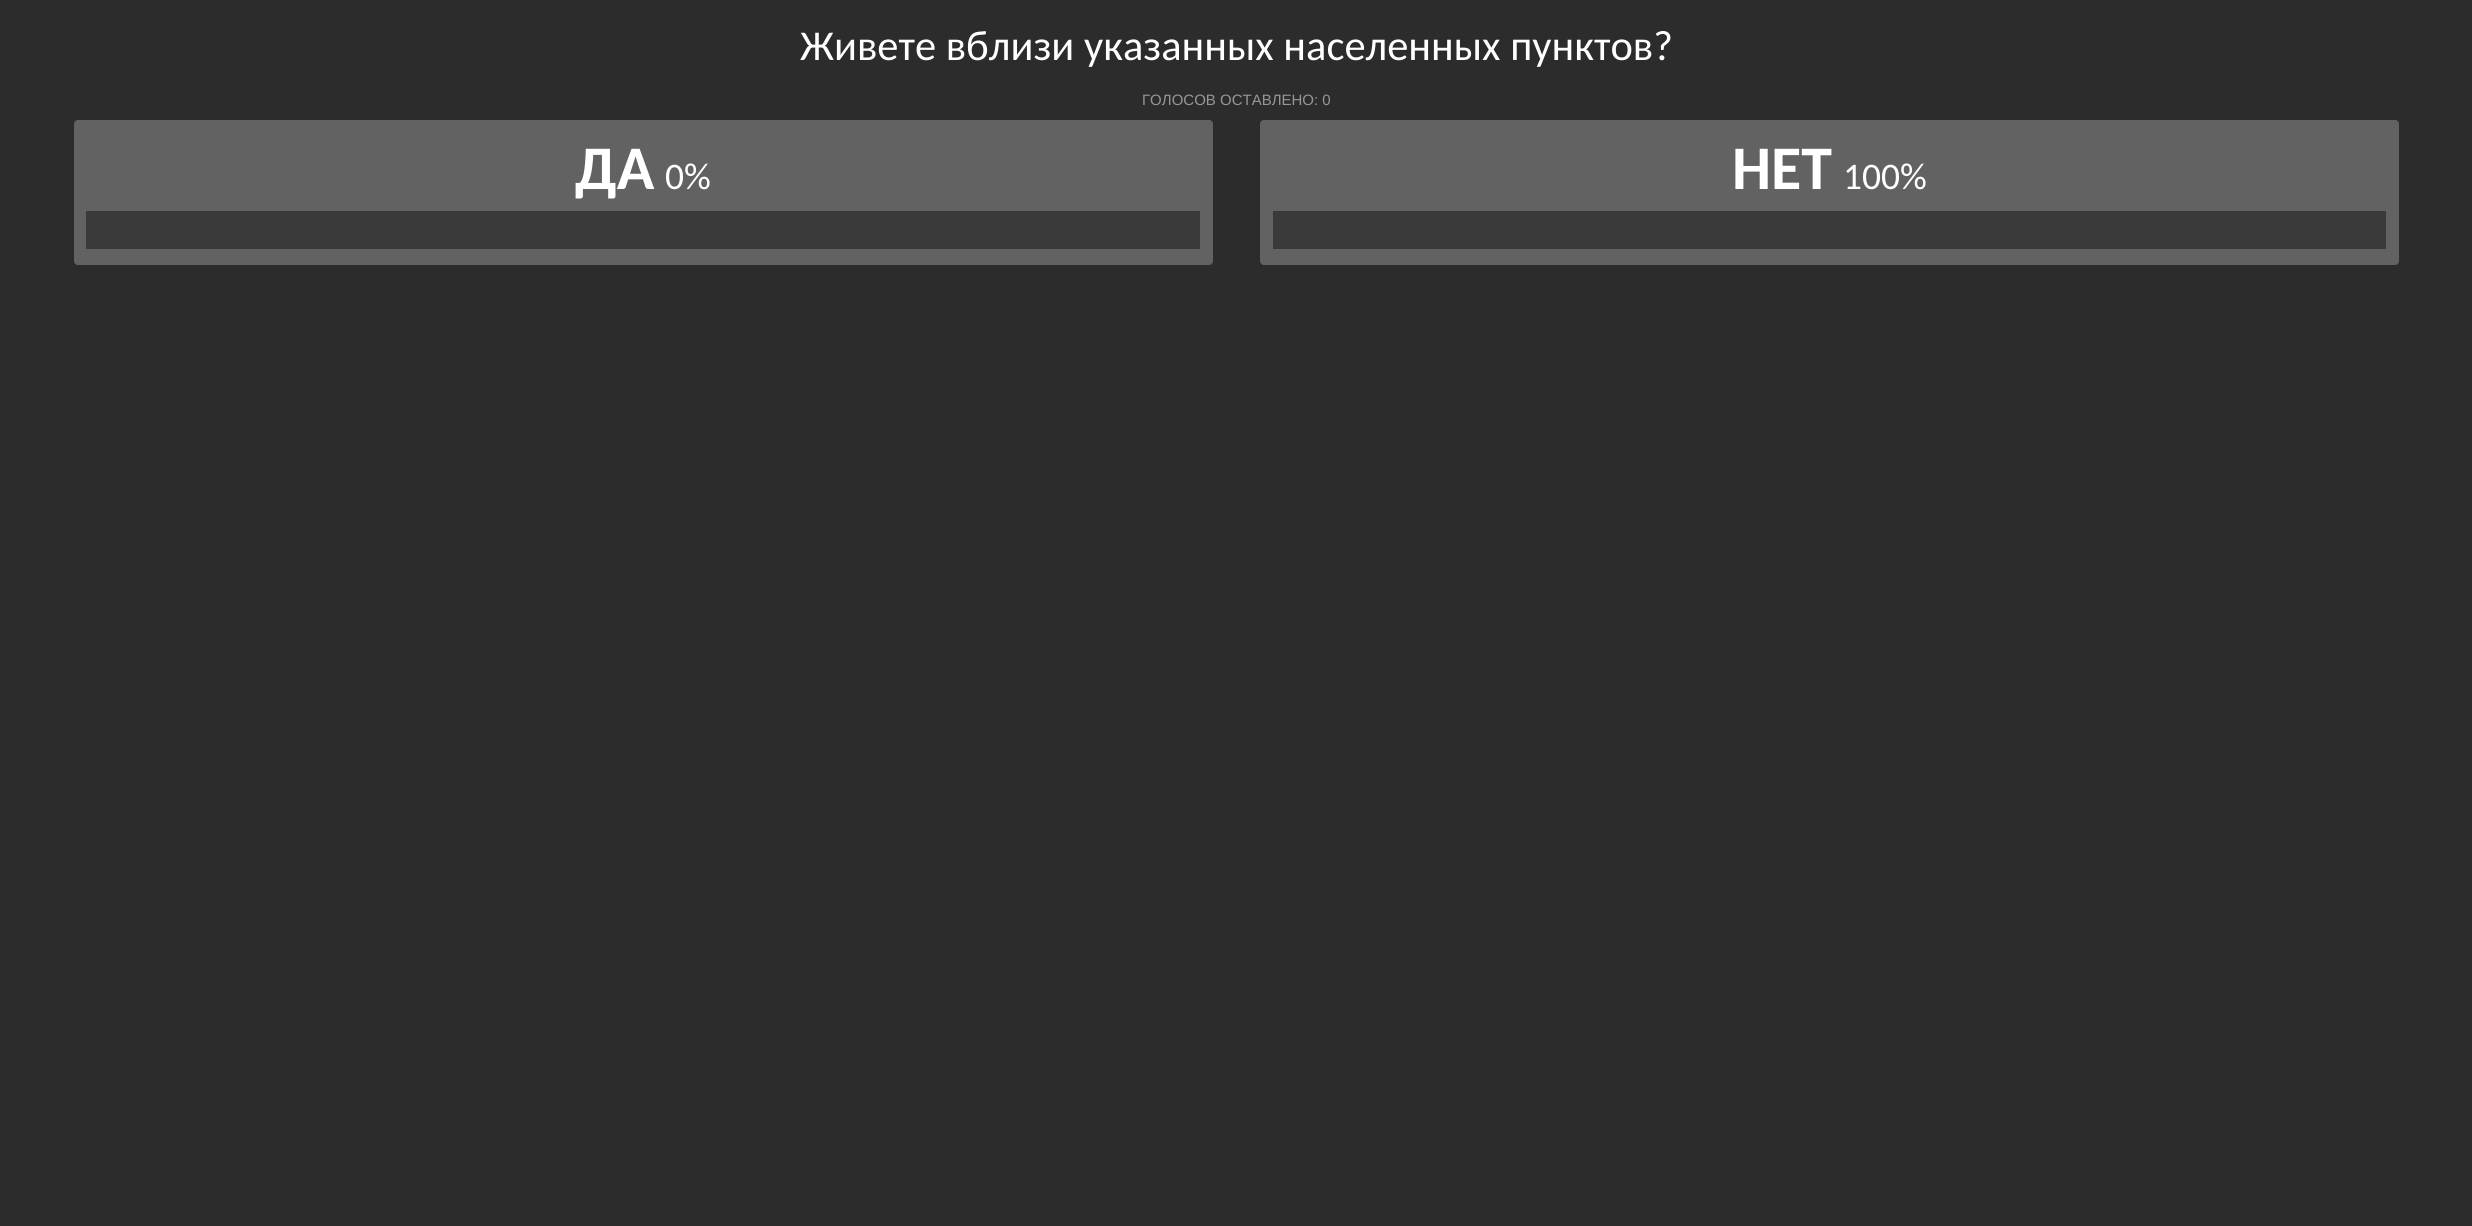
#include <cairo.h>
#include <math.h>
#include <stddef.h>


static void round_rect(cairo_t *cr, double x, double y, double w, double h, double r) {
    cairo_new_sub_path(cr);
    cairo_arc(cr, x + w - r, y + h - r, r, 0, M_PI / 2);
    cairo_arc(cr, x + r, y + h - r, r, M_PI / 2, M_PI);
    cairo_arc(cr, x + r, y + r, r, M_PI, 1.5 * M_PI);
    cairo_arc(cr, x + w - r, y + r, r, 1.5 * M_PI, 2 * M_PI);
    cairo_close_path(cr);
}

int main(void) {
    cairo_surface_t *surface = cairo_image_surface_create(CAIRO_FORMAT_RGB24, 2472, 1226);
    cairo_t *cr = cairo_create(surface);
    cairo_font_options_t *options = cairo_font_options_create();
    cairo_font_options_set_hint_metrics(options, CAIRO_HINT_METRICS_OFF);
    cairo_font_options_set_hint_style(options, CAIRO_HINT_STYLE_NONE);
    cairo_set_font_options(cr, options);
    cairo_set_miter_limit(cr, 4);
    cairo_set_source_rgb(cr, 0.173, 0.173, 0.173);
    cairo_paint(cr);
    cairo_select_font_face(cr, "Carlito", CAIRO_FONT_SLANT_NORMAL, CAIRO_FONT_WEIGHT_NORMAL);
    cairo_set_font_size(cr, 42.5);
    cairo_set_source_rgb(cr, 1, 1, 1);
    cairo_move_to(cr, 800, 60);
    cairo_show_text(cr, "Живете вблизи указанных населенных пунктов?");
    cairo_select_font_face(cr, "Liberation Sans", CAIRO_FONT_SLANT_NORMAL, CAIRO_FONT_WEIGHT_NORMAL);
    cairo_set_font_size(cr, 15);
    cairo_set_source_rgb(cr, 0.592, 0.592, 0.592);
    cairo_move_to(cr, 1142, 105);
    cairo_show_text(cr, "ГОЛОСОВ ОСТАВЛЕНО: 0");
    cairo_set_source_rgb(cr, 0.384, 0.384, 0.384);
    round_rect(cr, 74, 120, 1139, 145, 4);
    cairo_fill(cr);
    cairo_select_font_face(cr, "Carlito", CAIRO_FONT_SLANT_NORMAL, CAIRO_FONT_WEIGHT_BOLD);
    cairo_set_font_size(cr, 62);
    cairo_set_source_rgb(cr, 1, 1, 1);
    cairo_move_to(cr, 575, 189);
    cairo_show_text(cr, "ДА");
    cairo_select_font_face(cr, "Carlito", CAIRO_FONT_SLANT_NORMAL, CAIRO_FONT_WEIGHT_NORMAL);
    cairo_set_font_size(cr, 37.5);
    cairo_move_to(cr, 665, 189);
    cairo_show_text(cr, "0%");
    cairo_set_source_rgb(cr, 0.227, 0.227, 0.227);
    cairo_rectangle(cr, 86, 211, 1114, 38);
    cairo_fill(cr);
    cairo_set_source_rgb(cr, 0.384, 0.384, 0.384);
    round_rect(cr, 1260, 120, 1139, 145, 4);
    cairo_fill(cr);
    cairo_select_font_face(cr, "Carlito", CAIRO_FONT_SLANT_NORMAL, CAIRO_FONT_WEIGHT_BOLD);
    cairo_set_font_size(cr, 62);
    cairo_set_source_rgb(cr, 1, 1, 1);
    cairo_move_to(cr, 1732, 189);
    cairo_show_text(cr, "НЕТ");
    cairo_select_font_face(cr, "Carlito", CAIRO_FONT_SLANT_NORMAL, CAIRO_FONT_WEIGHT_NORMAL);
    cairo_set_font_size(cr, 37.5);
    cairo_move_to(cr, 1843, 189);
    cairo_show_text(cr, "100%");
    cairo_set_source_rgb(cr, 0.227, 0.227, 0.227);
    cairo_rectangle(cr, 1273, 211, 1113, 38);
    cairo_fill(cr);
    cairo_surface_write_to_png(surface, "page.png");
    cairo_font_options_destroy(options);
    cairo_destroy(cr);
    cairo_surface_destroy(surface);
    return 0;
}
